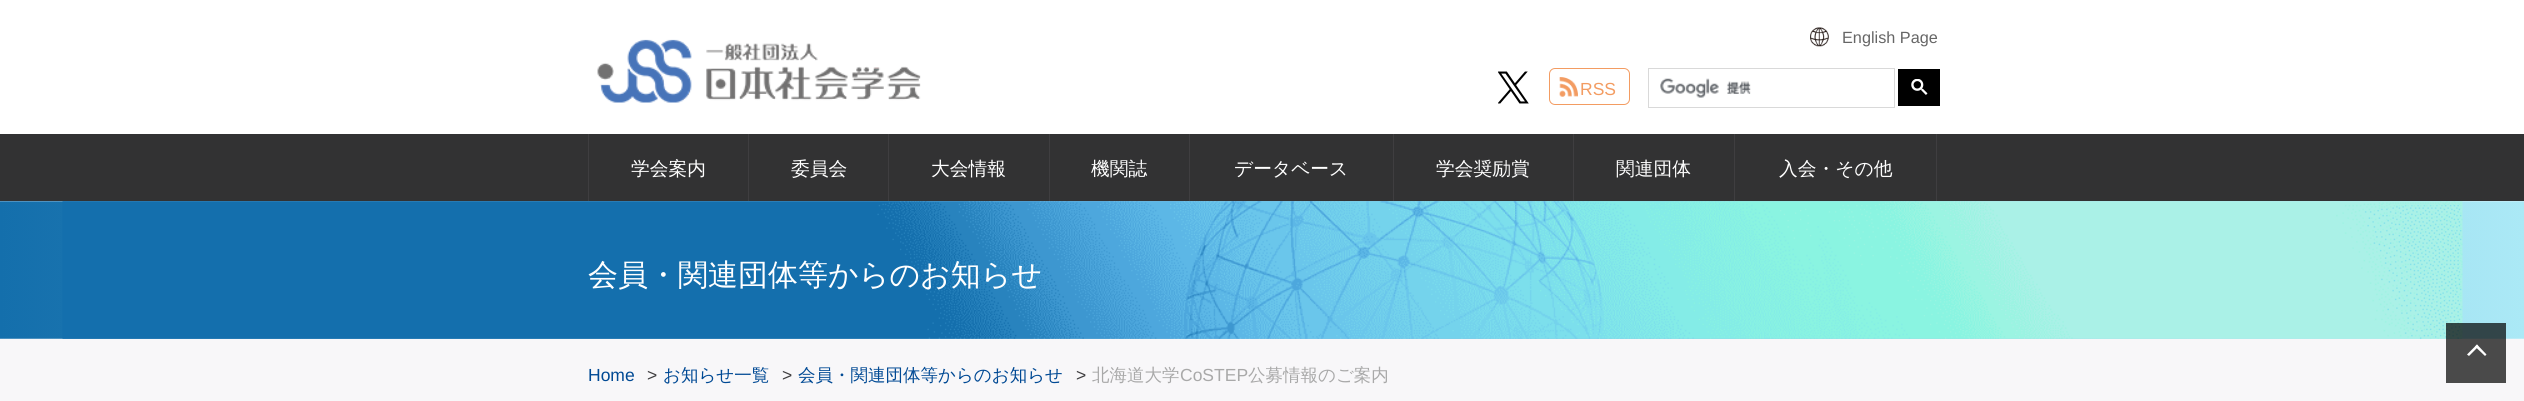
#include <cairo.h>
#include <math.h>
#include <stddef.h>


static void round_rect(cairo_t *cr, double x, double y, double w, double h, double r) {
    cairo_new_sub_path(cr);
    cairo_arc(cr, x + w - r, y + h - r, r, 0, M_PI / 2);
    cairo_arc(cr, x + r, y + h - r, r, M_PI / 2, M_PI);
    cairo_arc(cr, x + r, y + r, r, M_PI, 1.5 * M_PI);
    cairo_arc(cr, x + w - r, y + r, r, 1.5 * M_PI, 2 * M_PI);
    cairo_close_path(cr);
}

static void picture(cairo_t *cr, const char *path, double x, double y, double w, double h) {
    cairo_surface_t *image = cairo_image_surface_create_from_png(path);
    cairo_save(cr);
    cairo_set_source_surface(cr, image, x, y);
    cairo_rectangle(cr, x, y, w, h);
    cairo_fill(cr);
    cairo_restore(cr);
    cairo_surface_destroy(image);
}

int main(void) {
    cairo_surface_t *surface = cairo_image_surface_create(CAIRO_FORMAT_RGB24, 2524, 401);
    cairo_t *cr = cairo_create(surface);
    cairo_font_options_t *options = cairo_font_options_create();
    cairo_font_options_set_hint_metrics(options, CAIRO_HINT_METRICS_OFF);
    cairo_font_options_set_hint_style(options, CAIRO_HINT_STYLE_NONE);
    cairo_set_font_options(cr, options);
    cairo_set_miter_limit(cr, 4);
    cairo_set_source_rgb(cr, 1, 1, 1);
    cairo_paint(cr);
    picture(cr, "img1.png", 597, 39, 324, 64);
    picture(cr, "img2.png", 1810, 27, 19, 20);
    cairo_select_font_face(cr, "Liberation Sans", CAIRO_FONT_SLANT_NORMAL, CAIRO_FONT_WEIGHT_NORMAL);
    cairo_set_font_size(cr, 16.25);
    cairo_set_source_rgb(cr, 0.4, 0.4, 0.4);
    cairo_move_to(cr, 1842, 43);
    cairo_show_text(cr, "English Page");
    picture(cr, "img3.png", 1498, 71, 31, 33);
    picture(cr, "img4.png", 1559, 77, 19, 20);
    round_rect(cr, 1549.5, 68.5, 80, 36, 5.5);
    cairo_set_source_rgb(cr, 0.953, 0.612, 0.384);
    cairo_set_line_width(cr, 1);
    cairo_stroke(cr);
    cairo_set_font_size(cr, 17.5);
    cairo_move_to(cr, 1580, 95);
    cairo_show_text(cr, "RSS");
    cairo_rectangle(cr, 1648.5, 68.5, 246, 39);
    cairo_set_source_rgb(cr, 0.851, 0.851, 0.851);
    cairo_stroke(cr);
    picture(cr, "img5.png", 1660, 78, 91, 20);
    cairo_set_source_rgb(cr, 0, 0, 0);
    cairo_rectangle(cr, 1898, 69, 42, 37);
    cairo_fill(cr);
    picture(cr, "img6.png", 1911, 79, 17, 16);
    cairo_set_source_rgb(cr, 0.196, 0.196, 0.2);
    cairo_rectangle(cr, 0, 134, 2524, 67);
    cairo_fill(cr);
    cairo_set_source_rgb(cr, 0.247, 0.243, 0.251);
    cairo_rectangle(cr, 748, 134, 1, 70);
    cairo_fill(cr);
    cairo_rectangle(cr, 588, 134, 1, 70);
    cairo_fill(cr);
    cairo_select_font_face(cr, "WenQuanYi Zen Hei Medium", CAIRO_FONT_SLANT_NORMAL, CAIRO_FONT_WEIGHT_NORMAL);
    cairo_set_font_size(cr, 18.75);
    cairo_set_source_rgb(cr, 1, 1, 1);
    cairo_move_to(cr, 631, 175);
    cairo_show_text(cr, "学会案内");
    cairo_set_source_rgb(cr, 0.247, 0.243, 0.251);
    cairo_rectangle(cr, 888, 134, 1, 70);
    cairo_fill(cr);
    cairo_set_source_rgb(cr, 1, 1, 1);
    cairo_move_to(cr, 791, 175);
    cairo_show_text(cr, "委員会");
    cairo_set_source_rgb(cr, 0.247, 0.243, 0.251);
    cairo_rectangle(cr, 1049, 134, 1, 70);
    cairo_fill(cr);
    cairo_set_source_rgb(cr, 1, 1, 1);
    cairo_move_to(cr, 931, 175);
    cairo_show_text(cr, "大会情報");
    cairo_set_source_rgb(cr, 0.247, 0.243, 0.251);
    cairo_rectangle(cr, 1189, 134, 1, 70);
    cairo_fill(cr);
    cairo_set_source_rgb(cr, 1, 1, 1);
    cairo_move_to(cr, 1091, 175);
    cairo_show_text(cr, "機関誌");
    cairo_set_source_rgb(cr, 0.247, 0.243, 0.251);
    cairo_rectangle(cr, 1393, 134, 1, 70);
    cairo_fill(cr);
    cairo_set_source_rgb(cr, 1, 1, 1);
    cairo_move_to(cr, 1234, 175);
    cairo_show_text(cr, "データベース");
    cairo_set_source_rgb(cr, 0.247, 0.243, 0.251);
    cairo_rectangle(cr, 1573, 134, 1, 70);
    cairo_fill(cr);
    cairo_set_source_rgb(cr, 1, 1, 1);
    cairo_move_to(cr, 1436, 175);
    cairo_show_text(cr, "学会奨励賞");
    cairo_set_source_rgb(cr, 0.247, 0.243, 0.251);
    cairo_rectangle(cr, 1734, 134, 1, 70);
    cairo_fill(cr);
    cairo_set_source_rgb(cr, 1, 1, 1);
    cairo_move_to(cr, 1616, 175);
    cairo_show_text(cr, "関連団体");
    cairo_set_source_rgb(cr, 0.247, 0.243, 0.251);
    cairo_rectangle(cr, 1936, 134, 1, 70);
    cairo_fill(cr);
    cairo_set_source_rgb(cr, 1, 1, 1);
    cairo_move_to(cr, 1779, 175);
    cairo_show_text(cr, "入会・その他");
    cairo_set_source_rgb(cr, 0.969, 0.965, 0.973);
    cairo_rectangle(cr, 0, 201, 2524, 200);
    cairo_fill(cr);
    picture(cr, "img7.png", 0, 201, 2524, 138);
    cairo_set_font_size(cr, 30);
    cairo_set_source_rgb(cr, 1, 1, 1);
    cairo_move_to(cr, 588, 285);
    cairo_show_text(cr, "会員・関連団体等からのお知らせ");
    cairo_select_font_face(cr, "Liberation Sans", CAIRO_FONT_SLANT_NORMAL, CAIRO_FONT_WEIGHT_NORMAL);
    cairo_set_font_size(cr, 17.5);
    cairo_set_source_rgb(cr, 0, 0.286, 0.58);
    cairo_move_to(cr, 588, 381);
    cairo_show_text(cr, "Home");
    cairo_set_source_rgb(cr, 0.247, 0.243, 0.251);
    cairo_move_to(cr, 647, 381);
    cairo_show_text(cr, ">");
    cairo_select_font_face(cr, "WenQuanYi Zen Hei Medium", CAIRO_FONT_SLANT_NORMAL, CAIRO_FONT_WEIGHT_NORMAL);
    cairo_set_source_rgb(cr, 0, 0.286, 0.58);
    cairo_move_to(cr, 663, 381);
    cairo_show_text(cr, "お知らせ一覧");
    cairo_select_font_face(cr, "Liberation Sans", CAIRO_FONT_SLANT_NORMAL, CAIRO_FONT_WEIGHT_NORMAL);
    cairo_set_source_rgb(cr, 0.247, 0.243, 0.251);
    cairo_move_to(cr, 782, 381);
    cairo_show_text(cr, ">");
    cairo_select_font_face(cr, "WenQuanYi Zen Hei Medium", CAIRO_FONT_SLANT_NORMAL, CAIRO_FONT_WEIGHT_NORMAL);
    cairo_set_source_rgb(cr, 0, 0.286, 0.58);
    cairo_move_to(cr, 798, 381);
    cairo_show_text(cr, "会員・関連団体等からのお知らせ");
    cairo_select_font_face(cr, "Liberation Sans", CAIRO_FONT_SLANT_NORMAL, CAIRO_FONT_WEIGHT_NORMAL);
    cairo_set_source_rgb(cr, 0.247, 0.243, 0.251);
    cairo_move_to(cr, 1076, 381);
    cairo_show_text(cr, ">");
    cairo_select_font_face(cr, "WenQuanYi Zen Hei Medium", CAIRO_FONT_SLANT_NORMAL, CAIRO_FONT_WEIGHT_NORMAL);
    cairo_set_source_rgb(cr, 0.663, 0.663, 0.663);
    cairo_move_to(cr, 1092, 381);
    cairo_show_text(cr, "北海道大学");
    cairo_select_font_face(cr, "Liberation Sans", CAIRO_FONT_SLANT_NORMAL, CAIRO_FONT_WEIGHT_NORMAL);
    cairo_move_to(cr, 1180, 381);
    cairo_show_text(cr, "CoSTEP");
    cairo_select_font_face(cr, "WenQuanYi Zen Hei Medium", CAIRO_FONT_SLANT_NORMAL, CAIRO_FONT_WEIGHT_NORMAL);
    cairo_move_to(cr, 1248, 381);
    cairo_show_text(cr, "公募情報のご案内");
    cairo_set_source_rgba(cr, 0, 0, 0, 0.7);
    cairo_rectangle(cr, 2446, 323, 60, 60);
    cairo_fill(cr);
    cairo_set_source_rgb(cr, 1, 1, 1);
    cairo_new_path(cr);
    cairo_move_to(cr, 2467, 354.5);
    cairo_line_to(cr, 2477, 344.5);
    cairo_line_to(cr, 2478.5, 346.5);
    cairo_line_to(cr, 2469, 356);
    cairo_close_path(cr);
    cairo_fill(cr);
    cairo_new_path(cr);
    cairo_move_to(cr, 2475, 346.5);
    cairo_line_to(cr, 2477, 344.5);
    cairo_line_to(cr, 2486.5, 354.5);
    cairo_line_to(cr, 2485, 356);
    cairo_close_path(cr);
    cairo_fill(cr);
    cairo_surface_write_to_png(surface, "page.png");
    cairo_font_options_destroy(options);
    cairo_destroy(cr);
    cairo_surface_destroy(surface);
    return 0;
}
